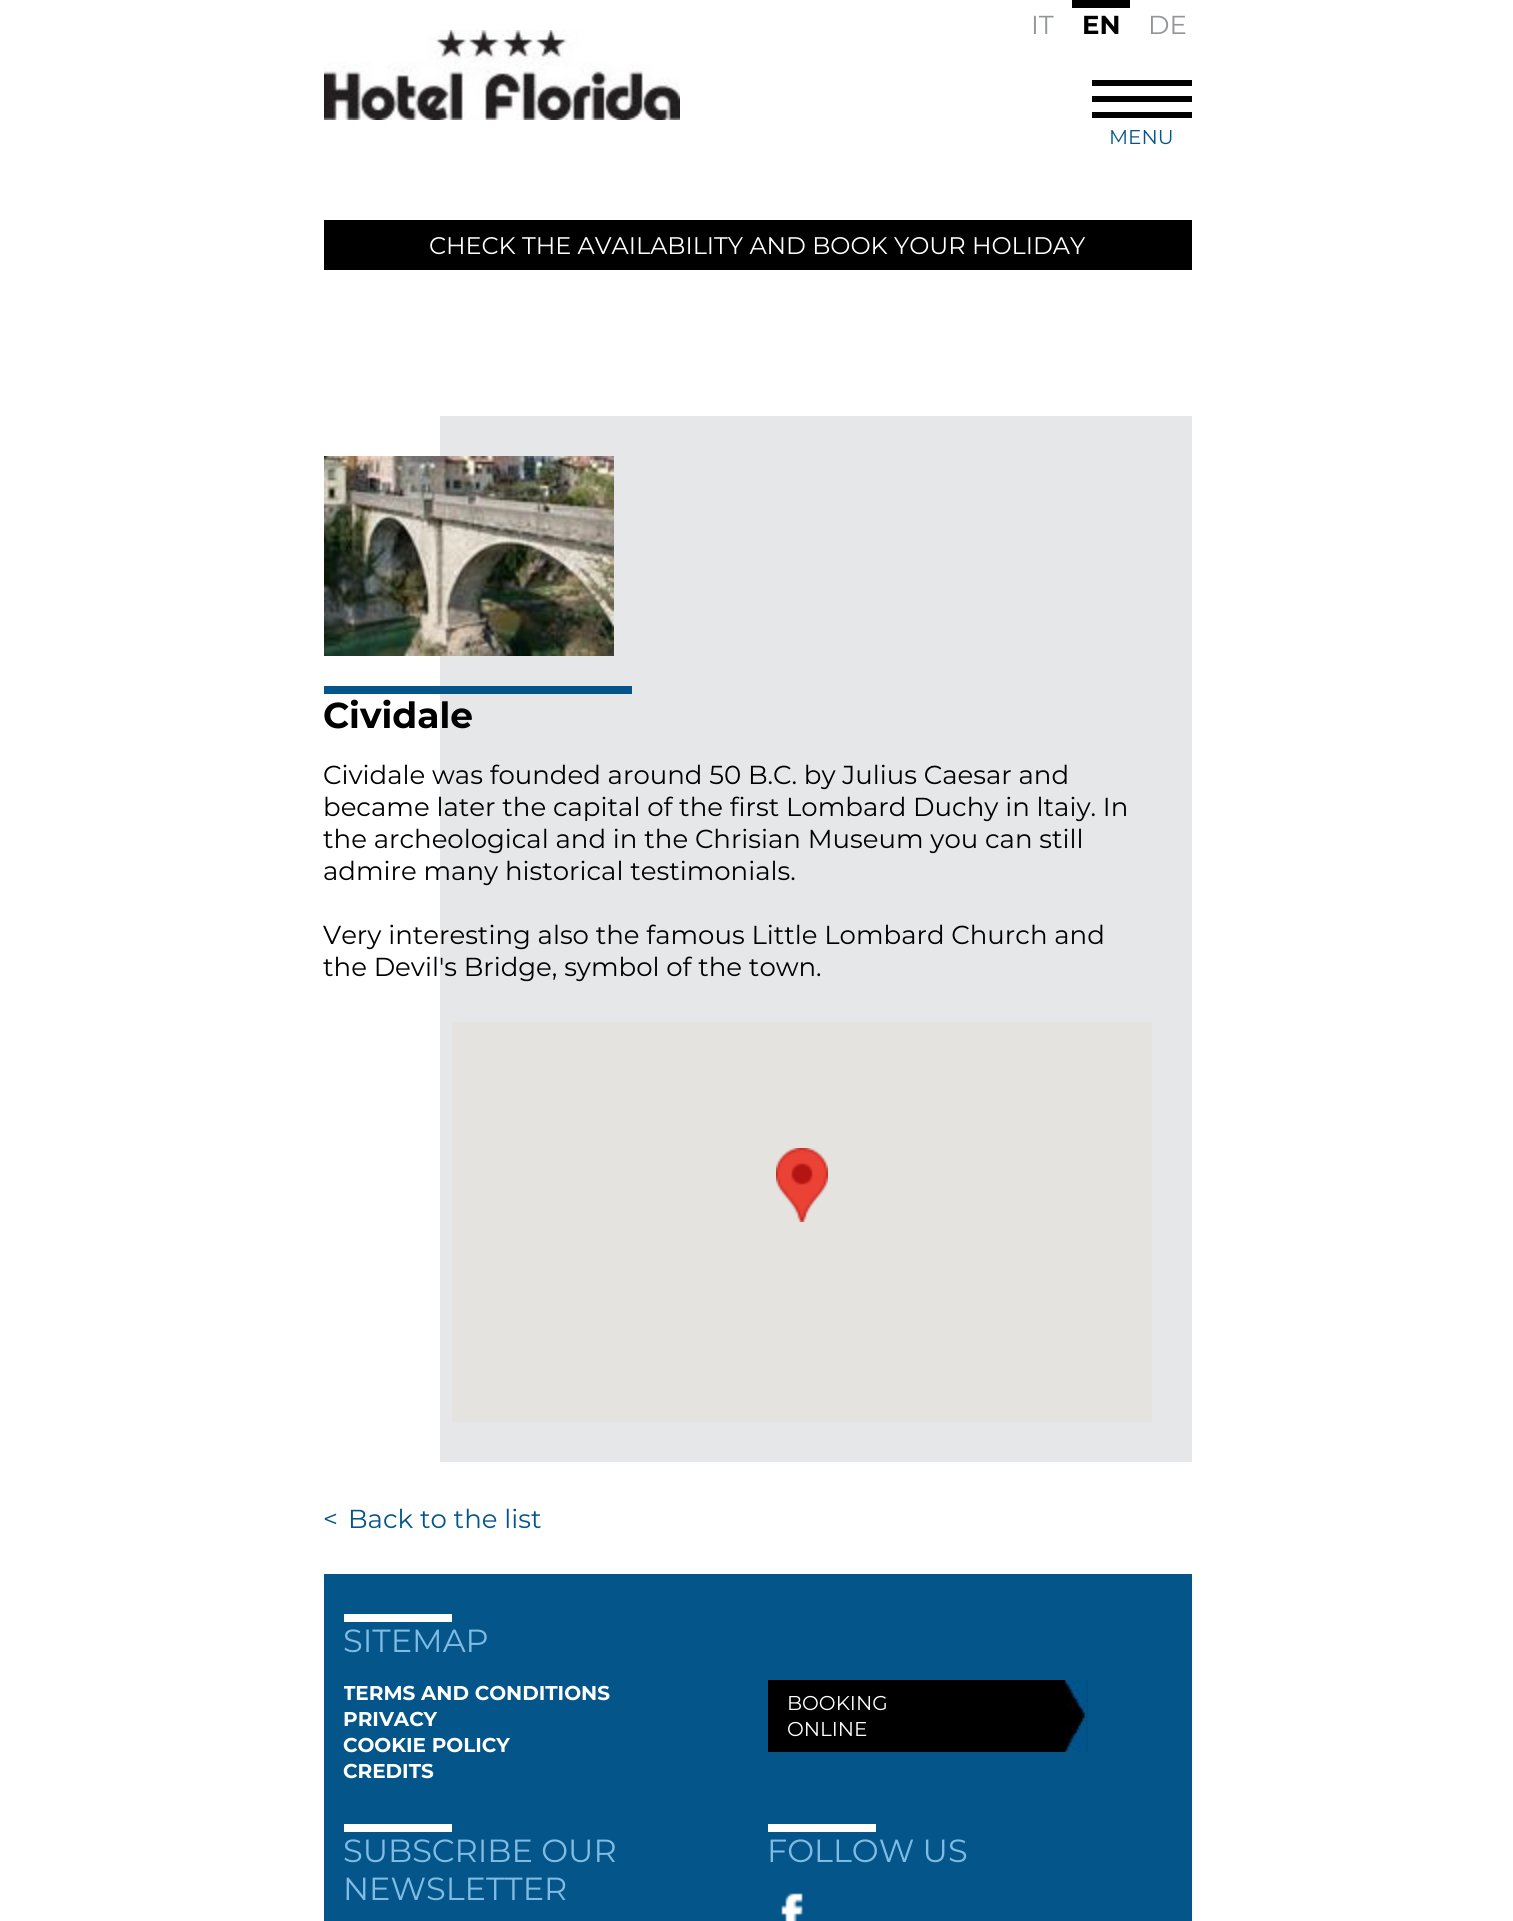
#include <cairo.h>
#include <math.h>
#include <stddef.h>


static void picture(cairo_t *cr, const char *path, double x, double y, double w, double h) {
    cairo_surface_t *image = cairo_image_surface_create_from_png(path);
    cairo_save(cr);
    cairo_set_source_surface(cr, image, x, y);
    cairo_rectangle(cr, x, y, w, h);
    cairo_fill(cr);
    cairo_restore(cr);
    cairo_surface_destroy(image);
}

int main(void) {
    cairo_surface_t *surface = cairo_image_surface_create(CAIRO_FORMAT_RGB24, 1513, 1921);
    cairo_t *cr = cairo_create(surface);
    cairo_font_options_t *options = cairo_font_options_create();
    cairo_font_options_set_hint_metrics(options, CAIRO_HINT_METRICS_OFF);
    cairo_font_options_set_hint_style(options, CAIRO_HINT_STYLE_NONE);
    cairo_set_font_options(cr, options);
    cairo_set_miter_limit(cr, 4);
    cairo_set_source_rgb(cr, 1, 1, 1);
    cairo_paint(cr);
    cairo_select_font_face(cr, "Montserrat", CAIRO_FONT_SLANT_NORMAL, CAIRO_FONT_WEIGHT_NORMAL);
    cairo_set_font_size(cr, 26);
    cairo_set_source_rgb(cr, 0.576, 0.584, 0.596);
    cairo_move_to(cr, 1031, 34);
    cairo_show_text(cr, "IT");
    cairo_set_source_rgb(cr, 0, 0, 0);
    cairo_rectangle(cr, 1072, 0, 58, 8);
    cairo_fill(cr);
    cairo_select_font_face(cr, "Montserrat", CAIRO_FONT_SLANT_NORMAL, CAIRO_FONT_WEIGHT_BOLD);
    cairo_move_to(cr, 1082, 34);
    cairo_show_text(cr, "EN");
    cairo_select_font_face(cr, "Montserrat", CAIRO_FONT_SLANT_NORMAL, CAIRO_FONT_WEIGHT_NORMAL);
    cairo_set_source_rgb(cr, 0.576, 0.584, 0.596);
    cairo_move_to(cr, 1148, 34);
    cairo_show_text(cr, "DE");
    picture(cr, "img1.png", 324, 30, 356, 90);
    cairo_set_source_rgb(cr, 0, 0, 0);
    cairo_rectangle(cr, 1092, 80, 100, 6);
    cairo_fill(cr);
    cairo_rectangle(cr, 1092, 96, 100, 6);
    cairo_fill(cr);
    cairo_rectangle(cr, 1092, 112, 100, 6);
    cairo_fill(cr);
    cairo_set_font_size(cr, 20);
    cairo_set_source_rgb(cr, 0.016, 0.337, 0.541);
    cairo_move_to(cr, 1109, 144);
    cairo_show_text(cr, "MENU");
    cairo_set_source_rgb(cr, 0, 0, 0);
    cairo_rectangle(cr, 324, 220, 868, 50);
    cairo_fill(cr);
    cairo_set_font_size(cr, 24);
    cairo_set_source_rgb(cr, 1, 1, 1);
    cairo_move_to(cr, 429, 254);
    cairo_show_text(cr, "CHECK THE AVAILABILITY AND BOOK YOUR HOLIDAY");
    cairo_set_source_rgb(cr, 0.902, 0.906, 0.91);
    cairo_rectangle(cr, 440, 416, 752, 1046);
    cairo_fill(cr);
    picture(cr, "img2.png", 324, 456, 290, 200);
    cairo_set_source_rgb(cr, 0.016, 0.337, 0.541);
    cairo_rectangle(cr, 324, 686, 308, 8);
    cairo_fill(cr);
    cairo_select_font_face(cr, "Montserrat", CAIRO_FONT_SLANT_NORMAL, CAIRO_FONT_WEIGHT_BOLD);
    cairo_set_font_size(cr, 36);
    cairo_set_source_rgb(cr, 0, 0, 0);
    cairo_move_to(cr, 323, 728);
    cairo_show_text(cr, "Cividale");
    cairo_select_font_face(cr, "Montserrat", CAIRO_FONT_SLANT_NORMAL, CAIRO_FONT_WEIGHT_NORMAL);
    cairo_set_font_size(cr, 26);
    cairo_move_to(cr, 323, 784);
    cairo_show_text(cr, "Cividale was founded around 50 B.C. by Julius Caesar and");
    cairo_move_to(cr, 323, 816);
    cairo_show_text(cr, "became later the capital of the first Lombard Duchy in ltaiy. In");
    cairo_move_to(cr, 323, 848);
    cairo_show_text(cr, "the archeological and in the Chrisian Museum you can still");
    cairo_move_to(cr, 323, 880);
    cairo_show_text(cr, "admire many historical testimonials.");
    cairo_move_to(cr, 323, 944);
    cairo_show_text(cr, "Very interesting also the famous Little Lombard Church and");
    cairo_move_to(cr, 323, 976);
    cairo_show_text(cr, "the Devil's Bridge, symbol of the town.");
    cairo_set_source_rgb(cr, 0.898, 0.89, 0.875);
    cairo_rectangle(cr, 452, 1022, 700, 400);
    cairo_fill(cr);
    picture(cr, "img3.png", 776, 1148, 52, 74);
    cairo_set_source_rgb(cr, 0.016, 0.337, 0.541);
    cairo_move_to(cr, 323, 1528);
    cairo_show_text(cr, "<");
    cairo_move_to(cr, 348, 1528);
    cairo_show_text(cr, "Back to the list");
    cairo_rectangle(cr, 324, 1574, 868, 347);
    cairo_fill(cr);
    cairo_set_source_rgb(cr, 1, 1, 1);
    cairo_rectangle(cr, 344, 1614, 108, 8);
    cairo_fill(cr);
    cairo_set_font_size(cr, 32);
    cairo_set_source_rgb(cr, 0.502, 0.733, 0.89);
    cairo_move_to(cr, 343, 1652);
    cairo_show_text(cr, "SITEMAP");
    cairo_save(cr);
    cairo_rectangle(cr, 344, 1614, 414, 170);
    cairo_clip(cr);
    cairo_select_font_face(cr, "Montserrat", CAIRO_FONT_SLANT_NORMAL, CAIRO_FONT_WEIGHT_BOLD);
    cairo_set_font_size(cr, 20);
    cairo_set_source_rgb(cr, 1, 1, 1);
    cairo_move_to(cr, 343, 1700);
    cairo_show_text(cr, "TERMS AND CONDITIONS");
    cairo_restore(cr);
    cairo_select_font_face(cr, "Montserrat", CAIRO_FONT_SLANT_NORMAL, CAIRO_FONT_WEIGHT_BOLD);
    cairo_set_font_size(cr, 20);
    cairo_set_source_rgb(cr, 1, 1, 1);
    cairo_move_to(cr, 343, 1726);
    cairo_show_text(cr, "PRIVACY");
    cairo_move_to(cr, 343, 1752);
    cairo_show_text(cr, "COOKIE POLICY");
    cairo_move_to(cr, 343, 1778);
    cairo_show_text(cr, "CREDITS");
    cairo_set_source_rgb(cr, 0, 0, 0);
    cairo_rectangle(cr, 768, 1680, 320, 72);
    cairo_fill(cr);
    picture(cr, "img4.png", 1064, 1680, 24, 72);
    cairo_select_font_face(cr, "Montserrat", CAIRO_FONT_SLANT_NORMAL, CAIRO_FONT_WEIGHT_NORMAL);
    cairo_set_source_rgb(cr, 1, 1, 1);
    cairo_move_to(cr, 787, 1710);
    cairo_show_text(cr, "BOOKING");
    cairo_move_to(cr, 787, 1736);
    cairo_show_text(cr, "ONLINE");
    cairo_rectangle(cr, 344, 1824, 108, 8);
    cairo_fill(cr);
    cairo_set_font_size(cr, 32);
    cairo_set_source_rgb(cr, 0.502, 0.733, 0.89);
    cairo_move_to(cr, 343, 1862);
    cairo_show_text(cr, "SUBSCRIBE OUR");
    cairo_move_to(cr, 343, 1900);
    cairo_show_text(cr, "NEWSLETTER");
    cairo_set_source_rgb(cr, 1, 1, 1);
    cairo_rectangle(cr, 768, 1824, 108, 8);
    cairo_fill(cr);
    cairo_set_source_rgb(cr, 0.502, 0.733, 0.89);
    cairo_move_to(cr, 767, 1862);
    cairo_show_text(cr, "FOLLOW US");
    picture(cr, "img5.png", 781, 1893, 22, 28);
    cairo_surface_write_to_png(surface, "page.png");
    cairo_font_options_destroy(options);
    cairo_destroy(cr);
    cairo_surface_destroy(surface);
    return 0;
}
